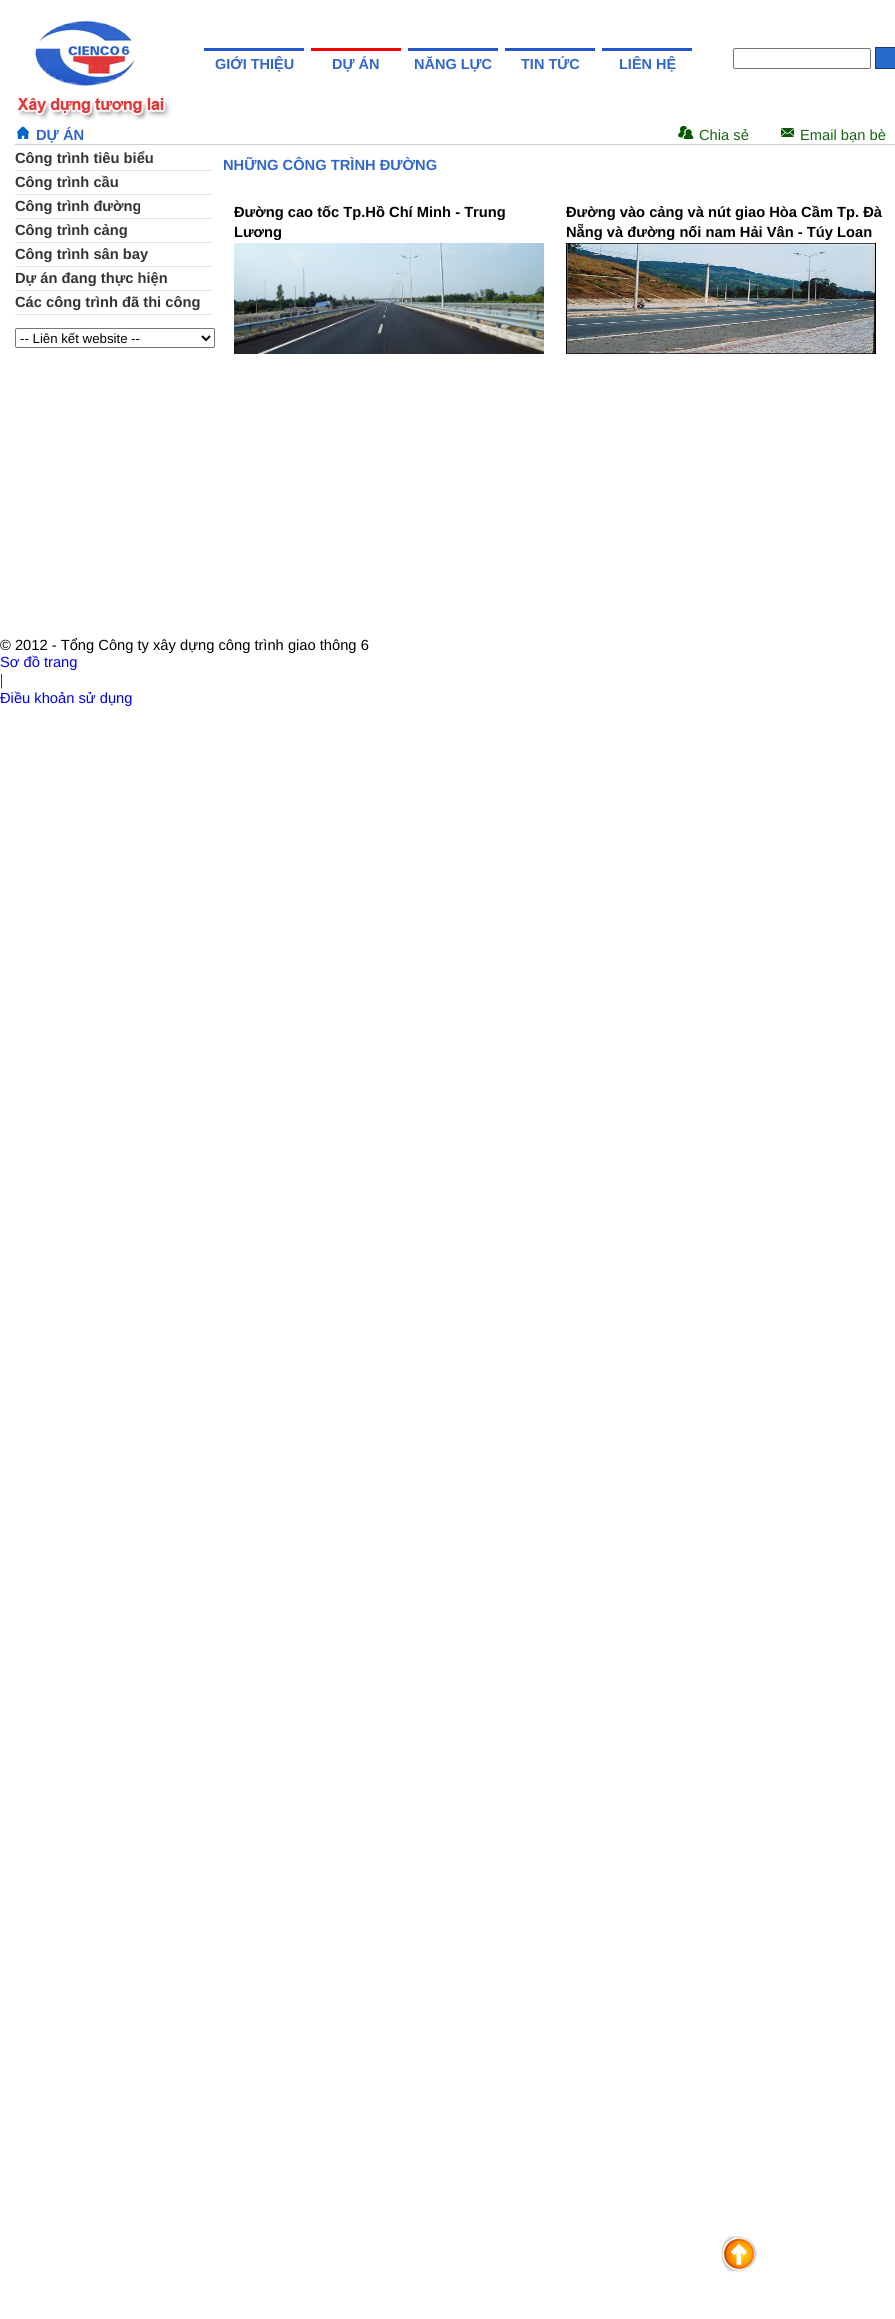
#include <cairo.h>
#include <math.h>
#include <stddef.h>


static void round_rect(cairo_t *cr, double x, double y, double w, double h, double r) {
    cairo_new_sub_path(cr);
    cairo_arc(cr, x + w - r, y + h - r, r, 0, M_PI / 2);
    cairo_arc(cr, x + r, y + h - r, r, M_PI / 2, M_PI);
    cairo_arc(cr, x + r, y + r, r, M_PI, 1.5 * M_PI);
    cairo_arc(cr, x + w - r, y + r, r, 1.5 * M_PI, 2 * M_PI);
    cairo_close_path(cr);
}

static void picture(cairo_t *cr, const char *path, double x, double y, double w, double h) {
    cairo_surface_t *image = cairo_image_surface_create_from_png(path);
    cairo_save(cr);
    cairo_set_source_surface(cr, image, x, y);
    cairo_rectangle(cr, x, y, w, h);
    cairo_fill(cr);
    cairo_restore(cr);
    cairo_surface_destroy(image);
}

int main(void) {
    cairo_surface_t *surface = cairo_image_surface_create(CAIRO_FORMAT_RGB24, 895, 2319);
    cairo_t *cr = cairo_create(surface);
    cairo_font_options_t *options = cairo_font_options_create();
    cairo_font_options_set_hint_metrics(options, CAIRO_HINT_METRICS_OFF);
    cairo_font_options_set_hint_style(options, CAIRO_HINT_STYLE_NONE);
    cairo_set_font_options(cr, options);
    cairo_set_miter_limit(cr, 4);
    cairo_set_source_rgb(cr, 1, 1, 1);
    cairo_paint(cr);
    picture(cr, "img1.png", 35, 20, 100, 66);
    picture(cr, "img2.png", 16, 96, 154, 24);
    cairo_set_source_rgb(cr, 0.133, 0.341, 0.792);
    cairo_rectangle(cr, 204, 48, 100, 3);
    cairo_fill(cr);
    cairo_select_font_face(cr, "Liberation Sans", CAIRO_FONT_SLANT_NORMAL, CAIRO_FONT_WEIGHT_BOLD);
    cairo_set_font_size(cr, 14.5);
    cairo_set_source_rgb(cr, 0.192, 0.4, 0.808);
    cairo_move_to(cr, 215, 69);
    cairo_show_text(cr, "GIỚI THIỆU");
    cairo_set_source_rgb(cr, 1, 0, 0);
    cairo_rectangle(cr, 311, 48, 90, 3);
    cairo_fill(cr);
    cairo_set_source_rgb(cr, 0.192, 0.4, 0.808);
    cairo_move_to(cr, 332, 69);
    cairo_show_text(cr, "DỰ ÁN");
    cairo_set_source_rgb(cr, 0.133, 0.341, 0.792);
    cairo_rectangle(cr, 408, 48, 90, 3);
    cairo_fill(cr);
    cairo_set_source_rgb(cr, 0.192, 0.4, 0.808);
    cairo_move_to(cr, 414, 69);
    cairo_show_text(cr, "NĂNG LỰC");
    cairo_set_source_rgb(cr, 0.133, 0.341, 0.792);
    cairo_rectangle(cr, 505, 48, 90, 3);
    cairo_fill(cr);
    cairo_set_source_rgb(cr, 0.192, 0.4, 0.808);
    cairo_move_to(cr, 521, 69);
    cairo_show_text(cr, "TIN TỨC");
    cairo_set_source_rgb(cr, 0.133, 0.341, 0.792);
    cairo_rectangle(cr, 602, 48, 90, 3);
    cairo_fill(cr);
    cairo_set_source_rgb(cr, 0.192, 0.4, 0.808);
    cairo_move_to(cr, 619, 69);
    cairo_show_text(cr, "LIÊN HỆ");
    round_rect(cr, 733.5, 48.5, 137, 20, 1.5);
    cairo_set_source_rgb(cr, 0.463, 0.463, 0.463);
    cairo_set_line_width(cr, 1);
    cairo_stroke(cr);
    cairo_set_source_rgb(cr, 0.145, 0.424, 0.796);
    cairo_rectangle(cr, 875.5, 47.5, 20, 21);
    cairo_fill_preserve(cr);
    cairo_set_source_rgb(cr, 0.094, 0.227, 0.49);
    cairo_stroke(cr);
    cairo_set_source_rgb(cr, 0.804, 0.804, 0.804);
    cairo_rectangle(cr, 15, 144, 880, 1);
    cairo_fill(cr);
    picture(cr, "img3.png", 17, 126, 12, 13);
    cairo_set_font_size(cr, 14.7);
    cairo_set_source_rgb(cr, 0.192, 0.4, 0.808);
    cairo_move_to(cr, 36, 140);
    cairo_show_text(cr, "DỰ ÁN");
    picture(cr, "img4.png", 678, 126, 16, 13);
    cairo_select_font_face(cr, "Liberation Sans", CAIRO_FONT_SLANT_NORMAL, CAIRO_FONT_WEIGHT_NORMAL);
    cairo_set_source_rgb(cr, 0.094, 0.396, 0.071);
    cairo_move_to(cr, 699, 140);
    cairo_show_text(cr, "Chia sẻ");
    picture(cr, "img5.png", 781, 128, 13, 9);
    cairo_move_to(cr, 800, 140);
    cairo_show_text(cr, "Email bạn bè");
    cairo_set_source_rgb(cr, 0.894, 0.894, 0.894);
    cairo_rectangle(cr, 15, 170, 198, 1);
    cairo_fill(cr);
    cairo_select_font_face(cr, "Liberation Sans", CAIRO_FONT_SLANT_NORMAL, CAIRO_FONT_WEIGHT_BOLD);
    cairo_set_source_rgb(cr, 0.2, 0.2, 0.2);
    cairo_move_to(cr, 15, 163);
    cairo_show_text(cr, "Công trình tiêu biểu");
    cairo_set_source_rgb(cr, 0.894, 0.894, 0.894);
    cairo_rectangle(cr, 15, 194, 198, 1);
    cairo_fill(cr);
    cairo_set_source_rgb(cr, 0.2, 0.2, 0.2);
    cairo_move_to(cr, 15, 187);
    cairo_show_text(cr, "Công trình cầu");
    cairo_set_source_rgb(cr, 0.894, 0.894, 0.894);
    cairo_rectangle(cr, 15, 218, 198, 1);
    cairo_fill(cr);
    cairo_set_source_rgb(cr, 0.2, 0.2, 0.2);
    cairo_move_to(cr, 15, 211);
    cairo_show_text(cr, "Công trình đường");
    cairo_set_source_rgb(cr, 0.894, 0.894, 0.894);
    cairo_rectangle(cr, 15, 242, 198, 1);
    cairo_fill(cr);
    cairo_set_source_rgb(cr, 0.2, 0.2, 0.2);
    cairo_move_to(cr, 15, 235);
    cairo_show_text(cr, "Công trình cảng");
    cairo_set_source_rgb(cr, 0.894, 0.894, 0.894);
    cairo_rectangle(cr, 15, 266, 198, 1);
    cairo_fill(cr);
    cairo_set_source_rgb(cr, 0.2, 0.2, 0.2);
    cairo_move_to(cr, 15, 259);
    cairo_show_text(cr, "Công trình sân bay");
    cairo_set_source_rgb(cr, 0.894, 0.894, 0.894);
    cairo_rectangle(cr, 15, 290, 198, 1);
    cairo_fill(cr);
    cairo_set_source_rgb(cr, 0.2, 0.2, 0.2);
    cairo_move_to(cr, 15, 283);
    cairo_show_text(cr, "Dự án đang thực hiện");
    cairo_set_source_rgb(cr, 0.894, 0.894, 0.894);
    cairo_rectangle(cr, 15, 314, 198, 1);
    cairo_fill(cr);
    cairo_set_source_rgb(cr, 0.2, 0.2, 0.2);
    cairo_move_to(cr, 15, 307);
    cairo_show_text(cr, "Các công trình đã thi công");
    round_rect(cr, 15.5, 328.5, 199, 19, 1.5);
    cairo_set_source_rgb(cr, 0.463, 0.463, 0.463);
    cairo_stroke(cr);
    cairo_new_path(cr);
    cairo_move_to(cr, 202, 336);
    cairo_line_to(cr, 206, 340);
    cairo_line_to(cr, 210, 336);
    cairo_set_source_rgb(cr, 0, 0, 0);
    cairo_set_line_width(cr, 2);
    cairo_stroke(cr);
    cairo_select_font_face(cr, "Liberation Sans", CAIRO_FONT_SLANT_NORMAL, CAIRO_FONT_WEIGHT_NORMAL);
    cairo_set_font_size(cr, 13.25);
    cairo_move_to(cr, 20, 343);
    cairo_show_text(cr, "-- Liên kết website --");
    cairo_select_font_face(cr, "Liberation Sans", CAIRO_FONT_SLANT_NORMAL, CAIRO_FONT_WEIGHT_BOLD);
    cairo_set_font_size(cr, 14.7);
    cairo_set_source_rgb(cr, 0.192, 0.4, 0.808);
    cairo_move_to(cr, 223, 170);
    cairo_show_text(cr, "NHỮNG CÔNG TRÌNH ĐƯỜNG");
    cairo_set_source_rgb(cr, 0, 0, 0);
    cairo_move_to(cr, 234, 217);
    cairo_show_text(cr, "Đường cao tốc Tp.Hồ Chí Minh - Trung");
    cairo_move_to(cr, 234, 237);
    cairo_show_text(cr, "Lương");
    picture(cr, "img6.png", 234, 243, 310, 111);
    cairo_move_to(cr, 566, 217);
    cairo_show_text(cr, "Đường vào cảng và nút giao Hòa Cầm Tp. Đà");
    cairo_move_to(cr, 566, 237);
    cairo_show_text(cr, "Nẵng và đường nối nam Hải Vân - Túy Loan");
    picture(cr, "img7.png", 566, 243, 310, 111);
    picture(cr, "img8.png", 721, 2235, 36, 38);
    cairo_select_font_face(cr, "Liberation Sans", CAIRO_FONT_SLANT_NORMAL, CAIRO_FONT_WEIGHT_NORMAL);
    cairo_move_to(cr, 0, 650);
    cairo_show_text(cr, "© 2012 - Tổng Công ty xây dựng công trình giao thông 6");
    cairo_set_source_rgb(cr, 0, 0, 0.933);
    cairo_move_to(cr, 0, 667);
    cairo_show_text(cr, "Sơ đồ trang");
    cairo_select_font_face(cr, "Liberation Serif", CAIRO_FONT_SLANT_NORMAL, CAIRO_FONT_WEIGHT_NORMAL);
    cairo_set_font_size(cr, 16);
    cairo_set_source_rgb(cr, 0, 0, 0);
    cairo_move_to(cr, 0, 685);
    cairo_show_text(cr, "|");
    cairo_select_font_face(cr, "Liberation Sans", CAIRO_FONT_SLANT_NORMAL, CAIRO_FONT_WEIGHT_NORMAL);
    cairo_set_font_size(cr, 14.7);
    cairo_set_source_rgb(cr, 0, 0, 0.933);
    cairo_move_to(cr, 0, 703);
    cairo_show_text(cr, "Điều khoản sử dụng");
    cairo_surface_write_to_png(surface, "page.png");
    cairo_font_options_destroy(options);
    cairo_destroy(cr);
    cairo_surface_destroy(surface);
    return 0;
}
